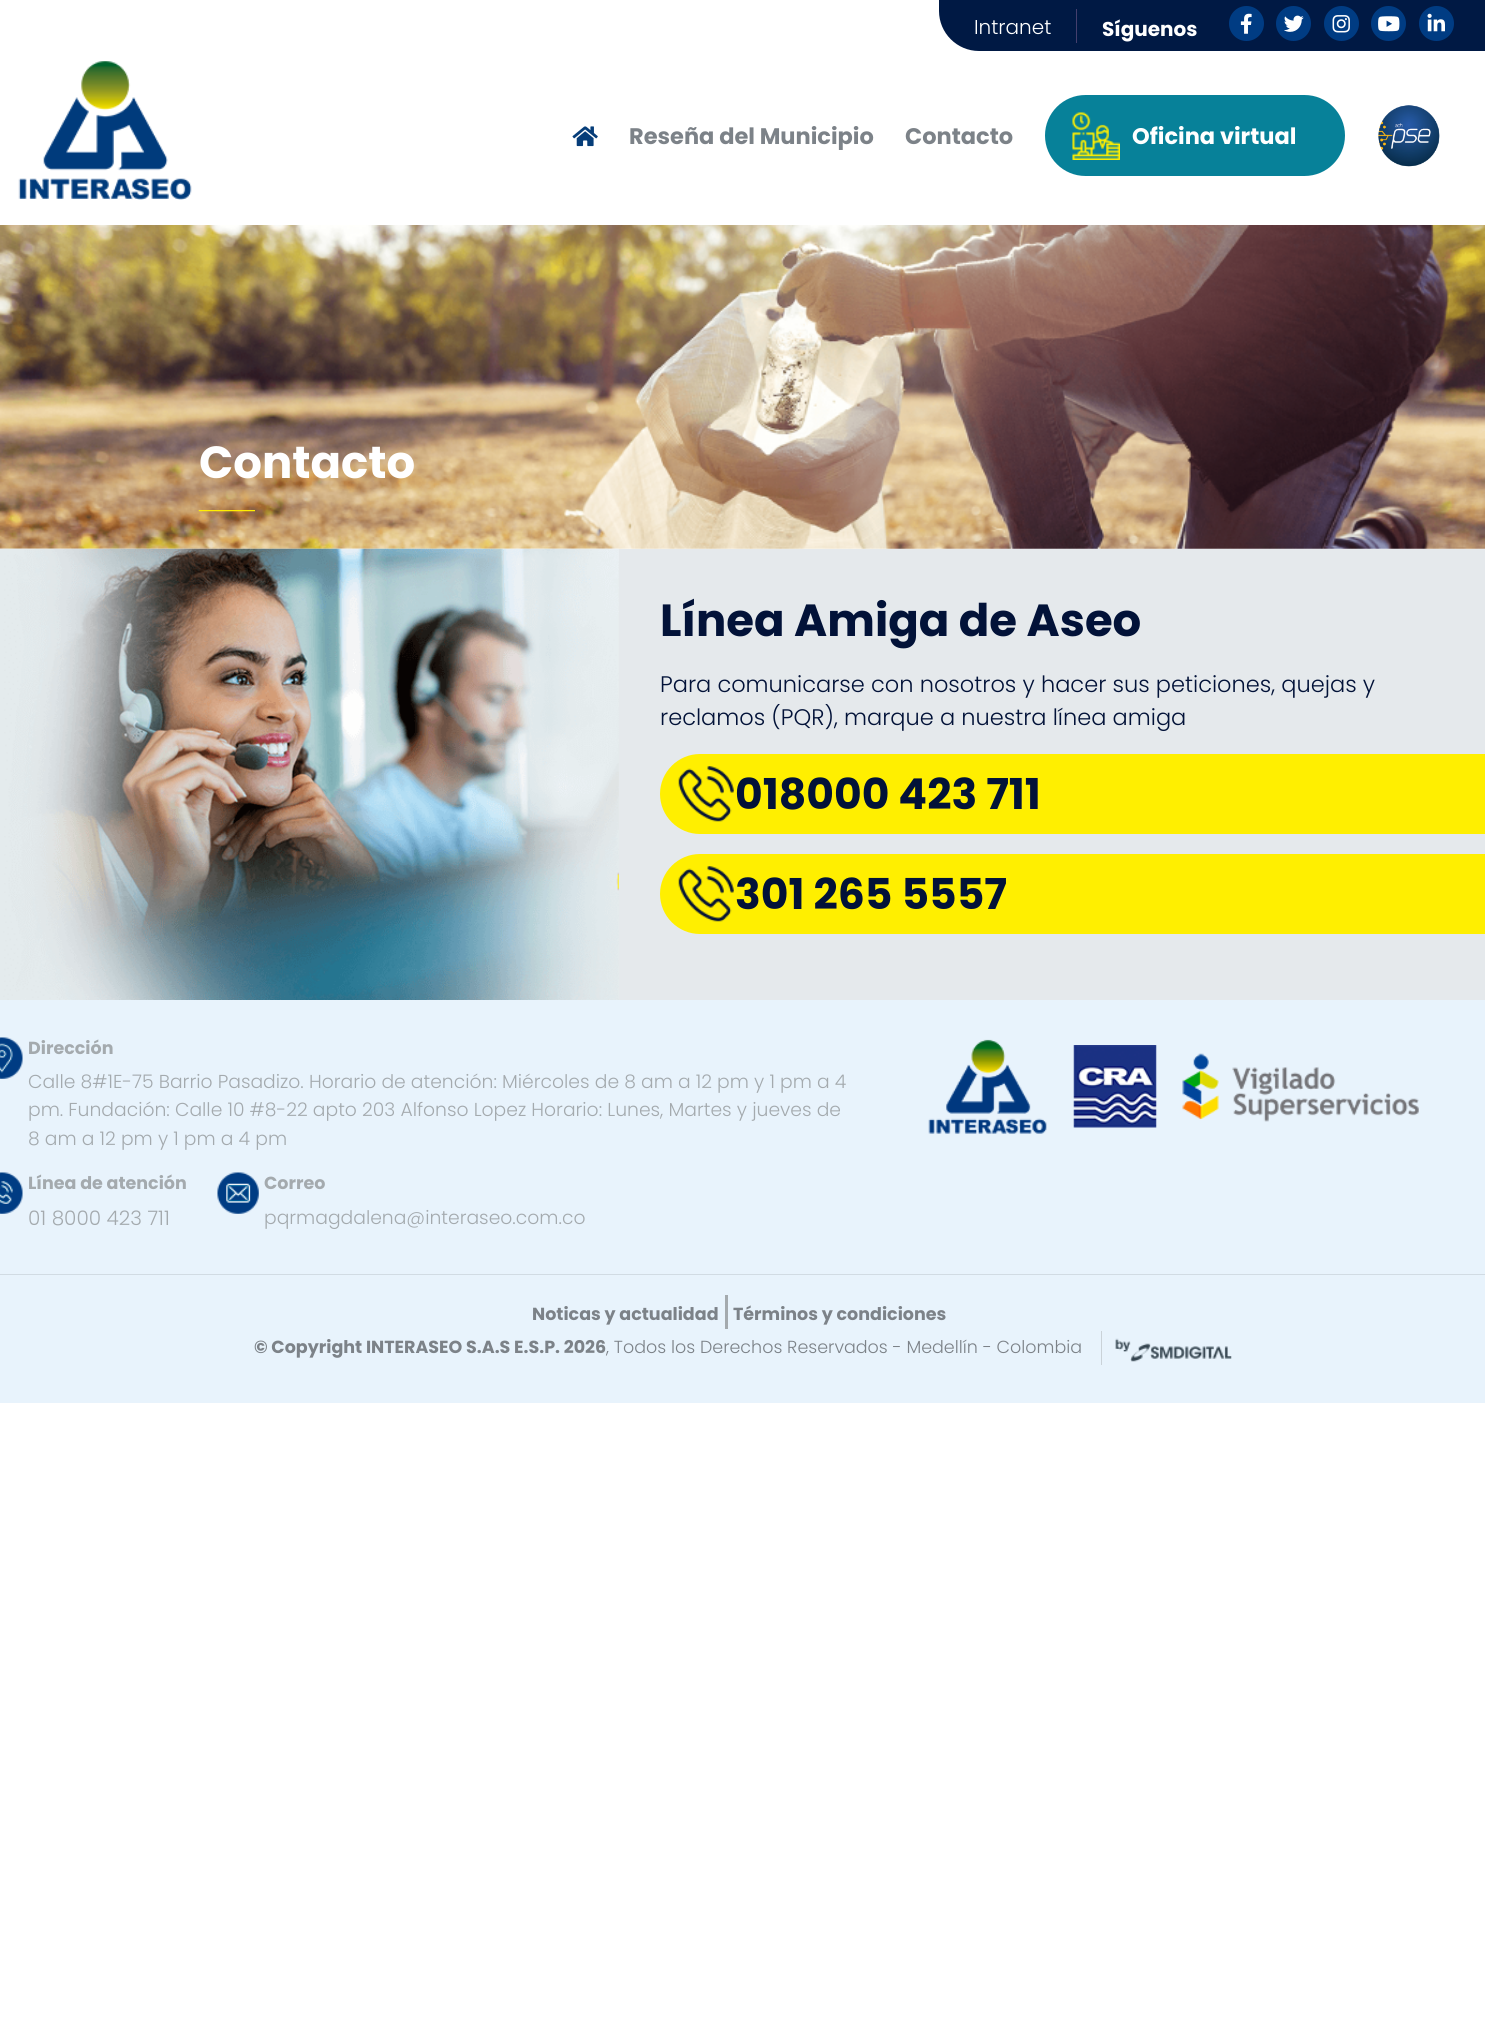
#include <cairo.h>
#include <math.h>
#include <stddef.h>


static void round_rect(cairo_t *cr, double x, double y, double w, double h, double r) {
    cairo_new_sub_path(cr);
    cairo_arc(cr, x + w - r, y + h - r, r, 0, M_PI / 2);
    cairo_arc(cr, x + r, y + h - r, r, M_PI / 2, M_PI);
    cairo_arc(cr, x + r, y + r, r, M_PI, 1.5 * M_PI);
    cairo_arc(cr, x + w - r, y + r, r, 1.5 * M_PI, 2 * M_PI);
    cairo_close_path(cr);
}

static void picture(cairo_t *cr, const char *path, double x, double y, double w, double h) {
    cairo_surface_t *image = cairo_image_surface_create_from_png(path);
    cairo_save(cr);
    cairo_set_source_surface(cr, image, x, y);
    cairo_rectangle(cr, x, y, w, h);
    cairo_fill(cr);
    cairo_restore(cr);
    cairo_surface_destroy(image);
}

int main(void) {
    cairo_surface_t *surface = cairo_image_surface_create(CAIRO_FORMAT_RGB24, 1485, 2029);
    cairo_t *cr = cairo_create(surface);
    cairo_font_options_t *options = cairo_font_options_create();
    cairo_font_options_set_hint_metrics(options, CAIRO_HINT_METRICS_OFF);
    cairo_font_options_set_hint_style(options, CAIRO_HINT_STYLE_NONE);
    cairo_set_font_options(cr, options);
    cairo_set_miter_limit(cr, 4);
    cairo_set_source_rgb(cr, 1, 1, 1);
    cairo_paint(cr);
    cairo_set_source_rgb(cr, 0, 0.098, 0.267);
    cairo_new_path(cr);
    cairo_move_to(cr, 939, 0);
    cairo_line_to(cr, 1485, 0);
    cairo_line_to(cr, 1485, 51);
    cairo_line_to(cr, 979, 51);
    cairo_curve_to(cr, 957, 51, 939, 33, 939, 11);
    cairo_close_path(cr);
    cairo_fill(cr);
    cairo_set_source_rgb(cr, 0.267, 0.247, 0.427);
    cairo_rectangle(cr, 1076, 9, 1, 34);
    cairo_fill(cr);
    cairo_select_font_face(cr, "Poppins Light", CAIRO_FONT_SLANT_NORMAL, CAIRO_FONT_WEIGHT_NORMAL);
    cairo_set_font_size(cr, 20);
    cairo_set_source_rgb(cr, 1, 1, 1);
    cairo_move_to(cr, 974, 34);
    cairo_show_text(cr, "Intranet");
    cairo_select_font_face(cr, "Poppins", CAIRO_FONT_SLANT_NORMAL, CAIRO_FONT_WEIGHT_BOLD);
    cairo_move_to(cr, 1102, 36);
    cairo_show_text(cr, "Síguenos");
    cairo_set_source_rgb(cr, 0, 0.235, 0.514);
    cairo_new_path(cr);
    cairo_arc(cr, 1246.5, 23.5, 17.5, 0, 2 * M_PI);
    cairo_fill(cr);
    picture(cr, "img1.png", 1240, 13, 12, 21);
    cairo_arc(cr, 1293.5, 23.5, 17.5, 0, 2 * M_PI);
    cairo_fill(cr);
    picture(cr, "img2.png", 1284, 15, 20, 17);
    cairo_arc(cr, 1341.5, 23.5, 17.5, 0, 2 * M_PI);
    cairo_fill(cr);
    picture(cr, "img3.png", 1332, 15, 18, 18);
    cairo_arc(cr, 1388.5, 23.5, 17.5, 0, 2 * M_PI);
    cairo_fill(cr);
    picture(cr, "img4.png", 1378, 16, 22, 16);
    cairo_arc(cr, 1436.5, 23.5, 17.5, 0, 2 * M_PI);
    cairo_fill(cr);
    picture(cr, "img5.png", 1427, 13, 18, 19);
    picture(cr, "img6.png", 18, 61, 174, 139);
    picture(cr, "img7.png", 572, 126, 26, 21);
    cairo_set_font_size(cr, 22.5);
    cairo_set_source_rgb(cr, 0.486, 0.51, 0.533);
    cairo_move_to(cr, 629, 144);
    cairo_show_text(cr, "Reseña del Municipio");
    cairo_move_to(cr, 905, 144);
    cairo_show_text(cr, "Contacto");
    cairo_set_source_rgb(cr, 0.031, 0.506, 0.6);
    round_rect(cr, 1045, 95, 300, 81, 40.5);
    cairo_fill(cr);
    picture(cr, "img8.png", 1072, 112, 48, 48);
    cairo_set_source_rgb(cr, 1, 1, 1);
    cairo_move_to(cr, 1132, 144);
    cairo_show_text(cr, "Oficina virtual");
    picture(cr, "img9.png", 1378, 105, 62, 62);
    picture(cr, "img10.png", 0, 225, 1485, 324);
    picture(cr, "img11.png", 198, 510, 57, 2);
    cairo_set_font_size(cr, 45);
    cairo_move_to(cr, 199, 478);
    cairo_show_text(cr, "Contacto");
    cairo_set_source_rgb(cr, 0.898, 0.914, 0.925);
    cairo_rectangle(cr, 618, 549, 867, 451);
    cairo_fill(cr);
    picture(cr, "img12.png", 0, 548, 619, 452);
    cairo_set_source_rgb(cr, 0.008, 0.071, 0.22);
    cairo_move_to(cr, 660, 636);
    cairo_show_text(cr, "Línea Amiga de Aseo");
    cairo_select_font_face(cr, "Poppins Light", CAIRO_FONT_SLANT_NORMAL, CAIRO_FONT_WEIGHT_NORMAL);
    cairo_set_font_size(cr, 22.5);
    cairo_move_to(cr, 660, 692);
    cairo_show_text(cr, "Para comunicarse con nosotros y hacer sus peticiones, quejas y");
    cairo_move_to(cr, 660, 725);
    cairo_show_text(cr, "reclamos (PQR), marque a nuestra línea amiga");
    cairo_set_source_rgb(cr, 1, 0.937, 0);
    cairo_new_path(cr);
    cairo_move_to(cr, 700, 754);
    cairo_line_to(cr, 1485, 754);
    cairo_line_to(cr, 1485, 834);
    cairo_line_to(cr, 700, 834);
    cairo_curve_to(cr, 678, 834, 660, 816, 660, 794);
    cairo_curve_to(cr, 660, 772, 678, 754, 700, 754);
    cairo_close_path(cr);
    cairo_fill(cr);
    picture(cr, "img13.png", 678, 766, 56, 56);
    cairo_select_font_face(cr, "Poppins", CAIRO_FONT_SLANT_NORMAL, CAIRO_FONT_WEIGHT_BOLD);
    cairo_set_font_size(cr, 42.5);
    cairo_set_source_rgb(cr, 0.008, 0.071, 0.22);
    cairo_move_to(cr, 735, 809);
    cairo_show_text(cr, "018000 423 711");
    cairo_set_source_rgb(cr, 1, 0.937, 0);
    cairo_new_path(cr);
    cairo_move_to(cr, 700, 854);
    cairo_line_to(cr, 1485, 854);
    cairo_line_to(cr, 1485, 934);
    cairo_line_to(cr, 700, 934);
    cairo_curve_to(cr, 678, 934, 660, 916, 660, 894);
    cairo_curve_to(cr, 660, 872, 678, 854, 700, 854);
    cairo_close_path(cr);
    cairo_fill(cr);
    picture(cr, "img13.png", 678, 866, 56, 56);
    cairo_set_source_rgb(cr, 0.008, 0.071, 0.22);
    cairo_move_to(cr, 735, 909);
    cairo_show_text(cr, "301 265 5557");
    cairo_set_source_rgb(cr, 0.91, 0.953, 0.988);
    cairo_rectangle(cr, 0, 1000, 1485, 403);
    cairo_fill(cr);
    picture(cr, "img14.png", 0, 1037, 23, 42);
    cairo_set_font_size(cr, 17.5);
    cairo_set_source_rgb(cr, 0.643, 0.667, 0.682);
    cairo_move_to(cr, 28, 1054);
    cairo_show_text(cr, "Dirección");
    cairo_select_font_face(cr, "Poppins Light", CAIRO_FONT_SLANT_NORMAL, CAIRO_FONT_WEIGHT_NORMAL);
    cairo_set_font_size(cr, 18.75);
    cairo_move_to(cr, 28, 1088);
    cairo_show_text(cr, "Calle 8#1E-75 Barrio Pasadizo. Horario de atención: Miércoles de 8 am a 12 pm y 1 pm a 4");
    cairo_move_to(cr, 28, 1116);
    cairo_show_text(cr, "pm. Fundación: Calle 10 #8-22 apto 203 Alfonso Lopez Horario: Lunes, Martes y jueves de");
    cairo_move_to(cr, 28, 1145);
    cairo_show_text(cr, "8 am a 12 pm y 1 pm a 4 pm");
    picture(cr, "img15.png", 0, 1172, 23, 42);
    cairo_select_font_face(cr, "Poppins", CAIRO_FONT_SLANT_NORMAL, CAIRO_FONT_WEIGHT_BOLD);
    cairo_set_font_size(cr, 17.5);
    cairo_move_to(cr, 28, 1189);
    cairo_show_text(cr, "Línea de atención");
    cairo_select_font_face(cr, "Poppins Light", CAIRO_FONT_SLANT_NORMAL, CAIRO_FONT_WEIGHT_NORMAL);
    cairo_set_font_size(cr, 20);
    cairo_move_to(cr, 28, 1225);
    cairo_show_text(cr, "01 8000 423 711");
    picture(cr, "img16.png", 217, 1172, 42, 42);
    cairo_select_font_face(cr, "Poppins", CAIRO_FONT_SLANT_NORMAL, CAIRO_FONT_WEIGHT_BOLD);
    cairo_set_font_size(cr, 17.5);
    cairo_move_to(cr, 264, 1189);
    cairo_show_text(cr, "Correo");
    cairo_select_font_face(cr, "Poppins Light", CAIRO_FONT_SLANT_NORMAL, CAIRO_FONT_WEIGHT_NORMAL);
    cairo_set_font_size(cr, 18.75);
    cairo_move_to(cr, 264, 1224);
    cairo_show_text(cr, "pqrmagdalena@interaseo.com.co");
    picture(cr, "img17.png", 928, 1039, 119, 95);
    picture(cr, "img18.png", 1073, 1045, 84, 83);
    picture(cr, "img19.png", 1182, 1053, 237, 69);
    cairo_set_source_rgb(cr, 0.82, 0.859, 0.89);
    cairo_rectangle(cr, 0, 1274, 1485, 1);
    cairo_fill(cr);
    cairo_set_source_rgb(cr, 0.643, 0.667, 0.682);
    cairo_rectangle(cr, 725, 1295, 3, 34);
    cairo_fill(cr);
    cairo_select_font_face(cr, "Poppins", CAIRO_FONT_SLANT_NORMAL, CAIRO_FONT_WEIGHT_BOLD);
    cairo_set_font_size(cr, 17.5);
    cairo_set_source_rgb(cr, 0.486, 0.51, 0.533);
    cairo_move_to(cr, 532, 1320);
    cairo_show_text(cr, "Noticas y actualidad");
    cairo_move_to(cr, 733, 1320);
    cairo_show_text(cr, "Términos y condiciones");
    cairo_move_to(cr, 254, 1353);
    cairo_show_text(cr, "© Copyright INTERASEO S.A.S E.S.P. 2026");
    cairo_select_font_face(cr, "Poppins Light", CAIRO_FONT_SLANT_NORMAL, CAIRO_FONT_WEIGHT_NORMAL);
    cairo_move_to(cr, 606, 1353);
    cairo_show_text(cr, ", Todos los Derechos Reservados - Medellín - Colombia");
    cairo_set_source_rgb(cr, 0.792, 0.824, 0.847);
    cairo_rectangle(cr, 1101, 1331, 1, 34);
    cairo_fill(cr);
    picture(cr, "img20.png", 1115, 1338, 117, 24);
    cairo_surface_write_to_png(surface, "page.png");
    cairo_font_options_destroy(options);
    cairo_destroy(cr);
    cairo_surface_destroy(surface);
    return 0;
}
